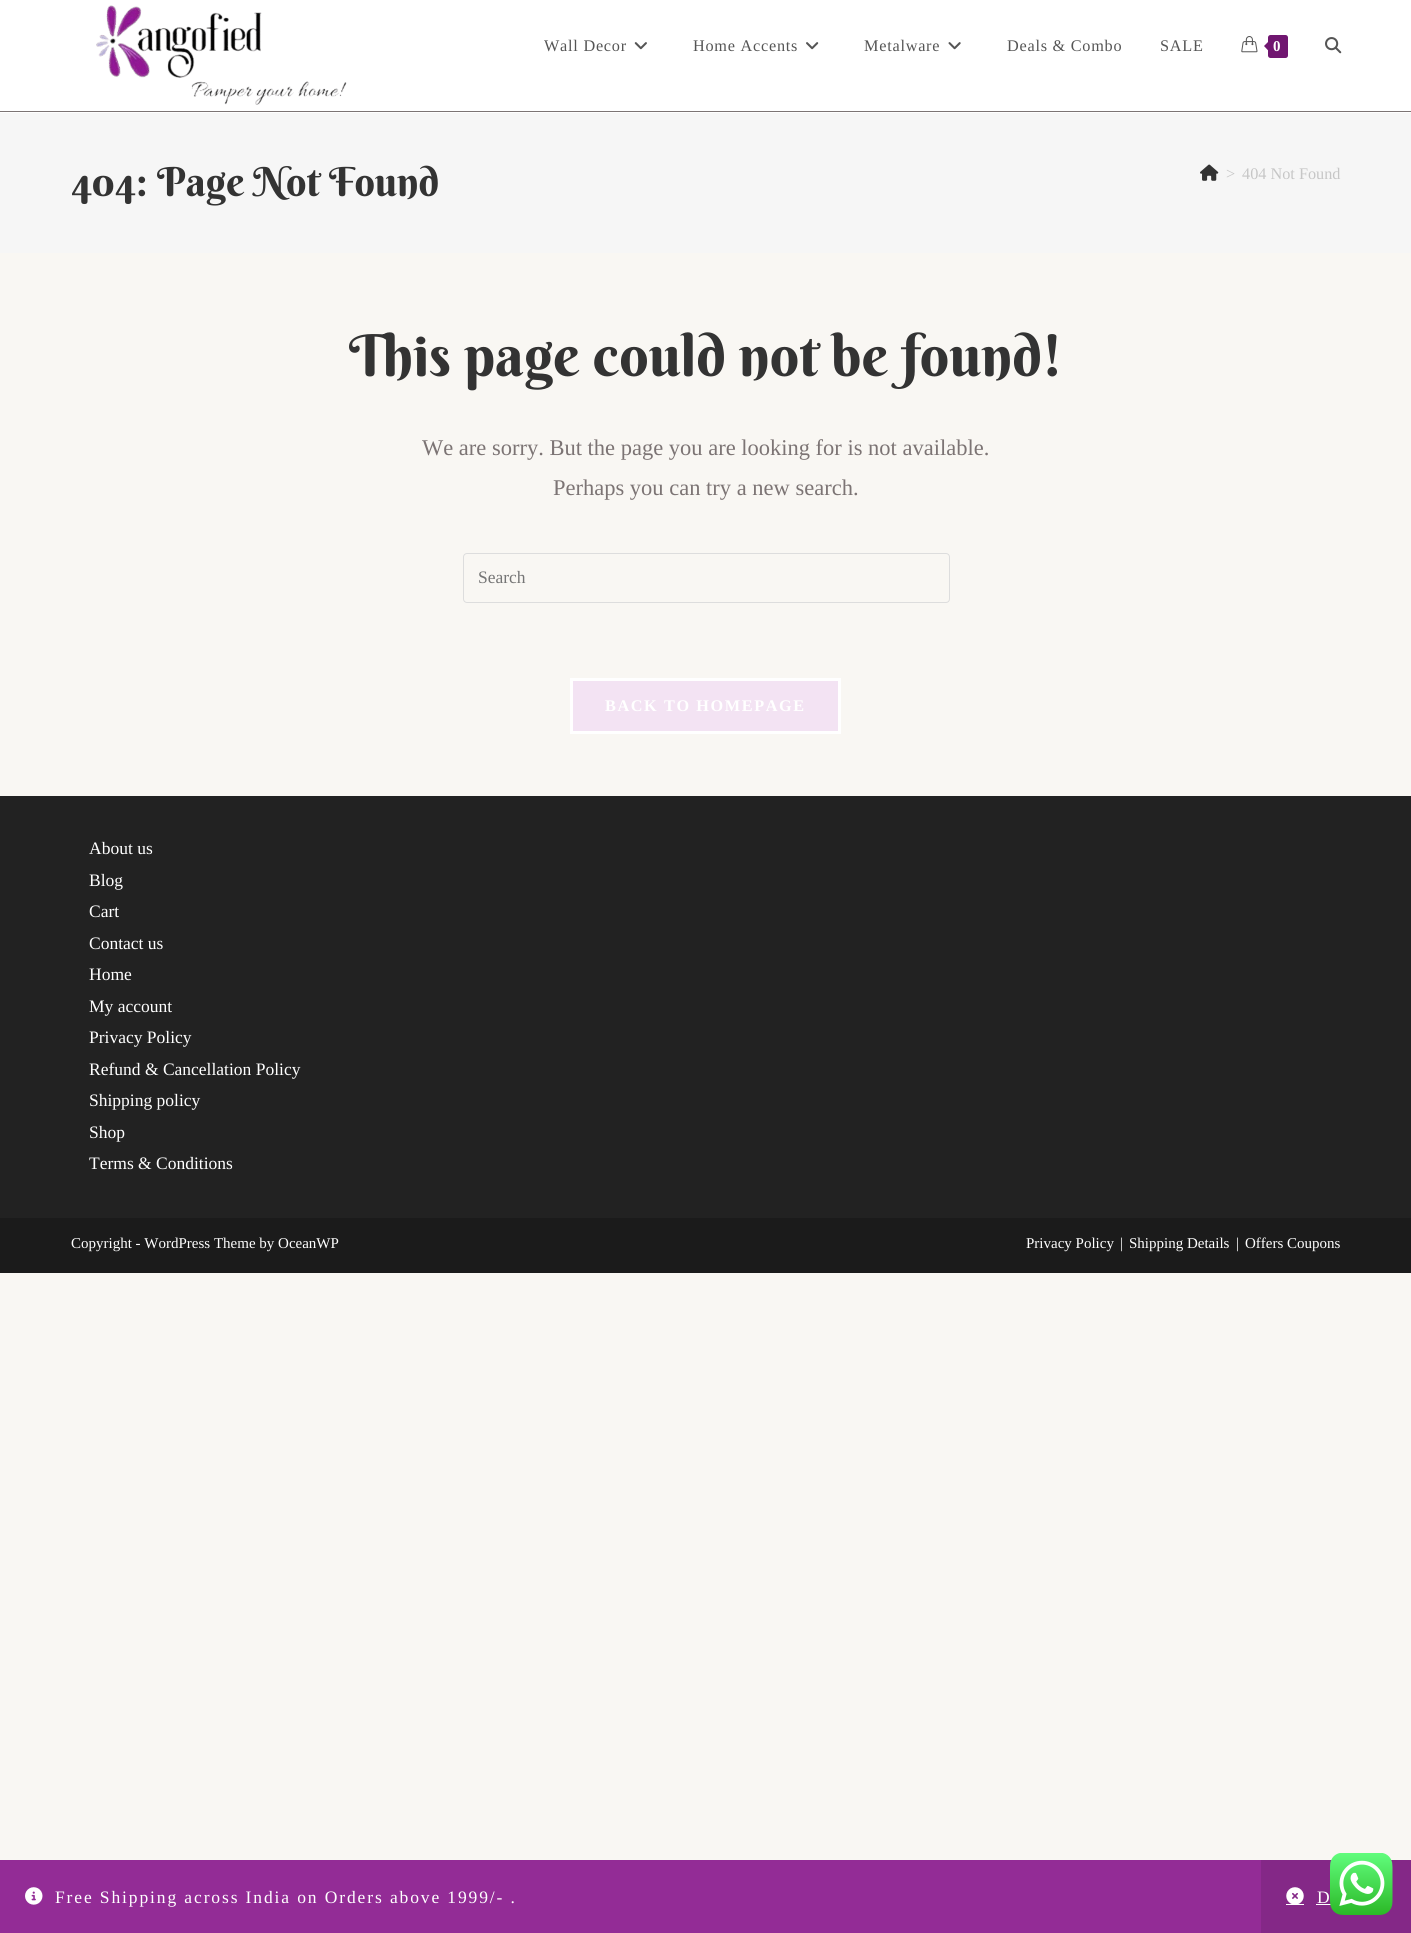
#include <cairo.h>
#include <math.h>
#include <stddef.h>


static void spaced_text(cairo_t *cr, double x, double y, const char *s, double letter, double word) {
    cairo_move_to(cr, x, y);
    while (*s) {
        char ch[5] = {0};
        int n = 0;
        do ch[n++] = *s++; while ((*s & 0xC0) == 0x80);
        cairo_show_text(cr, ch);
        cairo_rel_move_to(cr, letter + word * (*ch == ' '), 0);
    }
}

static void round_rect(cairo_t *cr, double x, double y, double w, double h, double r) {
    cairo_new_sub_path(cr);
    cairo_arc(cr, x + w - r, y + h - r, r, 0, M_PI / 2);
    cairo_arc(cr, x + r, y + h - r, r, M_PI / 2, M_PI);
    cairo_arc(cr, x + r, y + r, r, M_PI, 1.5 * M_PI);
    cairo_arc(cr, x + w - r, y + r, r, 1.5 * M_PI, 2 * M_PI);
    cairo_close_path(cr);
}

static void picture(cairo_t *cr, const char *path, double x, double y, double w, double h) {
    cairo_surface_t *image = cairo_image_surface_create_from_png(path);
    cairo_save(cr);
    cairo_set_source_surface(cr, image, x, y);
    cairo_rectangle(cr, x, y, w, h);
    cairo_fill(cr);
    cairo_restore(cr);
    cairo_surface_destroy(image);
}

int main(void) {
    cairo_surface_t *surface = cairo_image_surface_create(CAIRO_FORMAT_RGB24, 1411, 1933);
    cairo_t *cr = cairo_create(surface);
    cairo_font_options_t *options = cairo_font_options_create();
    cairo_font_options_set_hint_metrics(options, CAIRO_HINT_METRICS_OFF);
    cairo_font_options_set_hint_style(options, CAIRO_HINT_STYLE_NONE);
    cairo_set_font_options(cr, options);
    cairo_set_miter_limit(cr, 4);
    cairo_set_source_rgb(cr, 0.973, 0.965, 0.953);
    cairo_paint(cr);
    cairo_set_source_rgb(cr, 1, 1, 1);
    cairo_rectangle(cr, 0, 0, 1411, 113);
    cairo_fill(cr);
    cairo_set_source_rgb(cr, 0.486, 0.455, 0.455);
    cairo_rectangle(cr, 0, 111, 1411, 1);
    cairo_fill(cr);
    picture(cr, "img1.png", 96, 5, 251, 100);
    cairo_select_font_face(cr, "Liberation Serif", CAIRO_FONT_SLANT_NORMAL, CAIRO_FONT_WEIGHT_NORMAL);
    cairo_set_font_size(cr, 16.25);
    cairo_set_source_rgb(cr, 0.333, 0.333, 0.333);
    spaced_text(cr, 544, 51, "Wall Decor", 0.75, 0);
    picture(cr, "img2.png", 634, 42, 13, 8);
    spaced_text(cr, 693, 51, "Home Accents", 0.75, 0);
    picture(cr, "img3.png", 806, 42, 13, 8);
    spaced_text(cr, 864, 51, "Metalware", 0.75, 0);
    picture(cr, "img4.png", 948, 42, 13, 8);
    spaced_text(cr, 1007, 51, "Deals & Combo", 0.75, 0);
    spaced_text(cr, 1160, 51, "SALE", 0.75, 0);
    picture(cr, "img5.png", 1241, 36, 17, 17);
    cairo_set_source_rgb(cr, 0.439, 0.086, 0.439);
    round_rect(cr, 1268, 35, 20, 23, 2.5);
    cairo_fill(cr);
    cairo_new_path(cr);
    cairo_move_to(cr, 1270, 40);
    cairo_line_to(cr, 1270, 52.5);
    cairo_line_to(cr, 1264, 46);
    cairo_close_path(cr);
    cairo_fill(cr);
    cairo_select_font_face(cr, "Liberation Serif", CAIRO_FONT_SLANT_NORMAL, CAIRO_FONT_WEIGHT_BOLD);
    cairo_set_font_size(cr, 15);
    cairo_set_source_rgb(cr, 1, 1, 1);
    cairo_move_to(cr, 1273, 51);
    cairo_show_text(cr, "0");
    picture(cr, "img6.png", 1325, 37, 17, 17);
    cairo_set_source_rgb(cr, 0.961, 0.961, 0.961);
    cairo_rectangle(cr, 0, 113, 1411, 140);
    cairo_fill(cr);
    cairo_select_font_face(cr, "Berkshire Swash", CAIRO_FONT_SLANT_NORMAL, CAIRO_FONT_WEIGHT_NORMAL);
    cairo_set_font_size(cr, 40);
    cairo_set_source_rgb(cr, 0.2, 0.2, 0.2);
    cairo_move_to(cr, 71, 196);
    cairo_show_text(cr, "404: Page Not Found");
    picture(cr, "img7.png", 1200, 164, 19, 17);
    cairo_select_font_face(cr, "Liberation Serif", CAIRO_FONT_SLANT_NORMAL, CAIRO_FONT_WEIGHT_NORMAL);
    cairo_set_font_size(cr, 16.25);
    cairo_set_source_rgb(cr, 0.776, 0.776, 0.776);
    cairo_move_to(cr, 1226, 179);
    cairo_show_text(cr, ">");
    cairo_move_to(cr, 1242, 179);
    cairo_show_text(cr, "404 Not Found");
    cairo_select_font_face(cr, "Berkshire Swash", CAIRO_FONT_SLANT_NORMAL, CAIRO_FONT_WEIGHT_NORMAL);
    cairo_set_font_size(cr, 57.5);
    cairo_set_source_rgb(cr, 0.2, 0.2, 0.2);
    cairo_move_to(cr, 349, 376);
    cairo_show_text(cr, "This page could not be found!");
    cairo_select_font_face(cr, "Liberation Serif", CAIRO_FONT_SLANT_NORMAL, CAIRO_FONT_WEIGHT_NORMAL);
    cairo_set_font_size(cr, 22.5);
    cairo_set_source_rgb(cr, 0.486, 0.455, 0.455);
    cairo_move_to(cr, 422, 455);
    cairo_show_text(cr, "We are sorry. But the page you are looking for is not available.");
    cairo_move_to(cr, 553, 495);
    cairo_show_text(cr, "Perhaps you can try a new search.");
    round_rect(cr, 463.5, 553.5, 486, 49, 3.5);
    cairo_set_source_rgb(cr, 0.867, 0.867, 0.867);
    cairo_set_line_width(cr, 1);
    cairo_stroke(cr);
    cairo_set_font_size(cr, 17.5);
    cairo_set_source_rgb(cr, 0.459, 0.459, 0.459);
    cairo_move_to(cr, 478, 583);
    cairo_show_text(cr, "Search");
    cairo_set_source_rgb(cr, 0.953, 0.89, 0.953);
    cairo_rectangle(cr, 571.5, 679.5, 268, 53);
    cairo_fill_preserve(cr);
    cairo_set_source_rgb(cr, 1, 1, 1);
    cairo_set_line_width(cr, 3);
    cairo_stroke(cr);
    cairo_select_font_face(cr, "Liberation Serif", CAIRO_FONT_SLANT_NORMAL, CAIRO_FONT_WEIGHT_BOLD);
    cairo_set_font_size(cr, 16.25);
    spaced_text(cr, 605, 711, "BACK TO HOMEPAGE", 1.6, 0);
    cairo_set_source_rgb(cr, 0.133, 0.133, 0.133);
    cairo_rectangle(cr, 0, 796, 1411, 422);
    cairo_fill(cr);
    cairo_select_font_face(cr, "Liberation Serif", CAIRO_FONT_SLANT_NORMAL, CAIRO_FONT_WEIGHT_NORMAL);
    cairo_set_font_size(cr, 17.5);
    cairo_set_source_rgb(cr, 1, 1, 1);
    cairo_move_to(cr, 89, 854);
    cairo_show_text(cr, "About us");
    cairo_move_to(cr, 89, 886);
    cairo_show_text(cr, "Blog");
    cairo_move_to(cr, 89, 917);
    cairo_show_text(cr, "Cart");
    cairo_move_to(cr, 89, 949);
    cairo_show_text(cr, "Contact us");
    cairo_move_to(cr, 89, 980);
    cairo_show_text(cr, "Home");
    cairo_move_to(cr, 89, 1012);
    cairo_show_text(cr, "My account");
    cairo_move_to(cr, 89, 1043);
    cairo_show_text(cr, "Privacy Policy");
    cairo_move_to(cr, 89, 1075);
    cairo_show_text(cr, "Refund & Cancellation Policy");
    cairo_move_to(cr, 89, 1106);
    cairo_show_text(cr, "Shipping policy");
    cairo_move_to(cr, 89, 1138);
    cairo_show_text(cr, "Shop");
    cairo_move_to(cr, 89, 1169);
    cairo_show_text(cr, "Terms & Conditions");
    cairo_set_source_rgb(cr, 0.106, 0.106, 0.106);
    cairo_rectangle(cr, 0, 1218, 1411, 55);
    cairo_fill(cr);
    cairo_set_font_size(cr, 15);
    cairo_set_source_rgb(cr, 1, 1, 1);
    cairo_move_to(cr, 71, 1248);
    cairo_show_text(cr, "Copyright - WordPress Theme by OceanWP");
    cairo_move_to(cr, 1026, 1248);
    cairo_show_text(cr, "Privacy Policy");
    cairo_move_to(cr, 1120, 1248);
    cairo_show_text(cr, "|");
    cairo_move_to(cr, 1129, 1248);
    cairo_show_text(cr, "Shipping Details");
    cairo_move_to(cr, 1236, 1248);
    cairo_show_text(cr, "|");
    cairo_move_to(cr, 1245, 1248);
    cairo_show_text(cr, "Offers Coupons");
    cairo_set_source_rgb(cr, 0.576, 0.173, 0.588);
    cairo_rectangle(cr, 0, 1860, 1261, 73);
    cairo_fill(cr);
    picture(cr, "img8.png", 25, 1887, 18, 18);
    cairo_set_font_size(cr, 17.5);
    cairo_set_source_rgb(cr, 1, 1, 1);
    spaced_text(cr, 55, 1903, "Free Shipping across India on Orders above 1999/- .", 1.88, 0);
    cairo_set_source_rgb(cr, 0.518, 0.157, 0.529);
    cairo_rectangle(cr, 1261, 1860, 150, 73);
    cairo_fill(cr);
    picture(cr, "img9.png", 1286, 1887, 18, 17);
    cairo_set_source_rgb(cr, 1, 1, 1);
    spaced_text(cr, 1317, 1903, "D", 1.88, 0);
    cairo_rectangle(cr, 1316, 1904, 15, 1);
    cairo_fill(cr);
    cairo_rectangle(cr, 1286, 1904, 18, 1);
    cairo_fill(cr);
    picture(cr, "img10.png", 1330, 1853, 63, 62);
    cairo_surface_write_to_png(surface, "page.png");
    cairo_font_options_destroy(options);
    cairo_destroy(cr);
    cairo_surface_destroy(surface);
    return 0;
}
